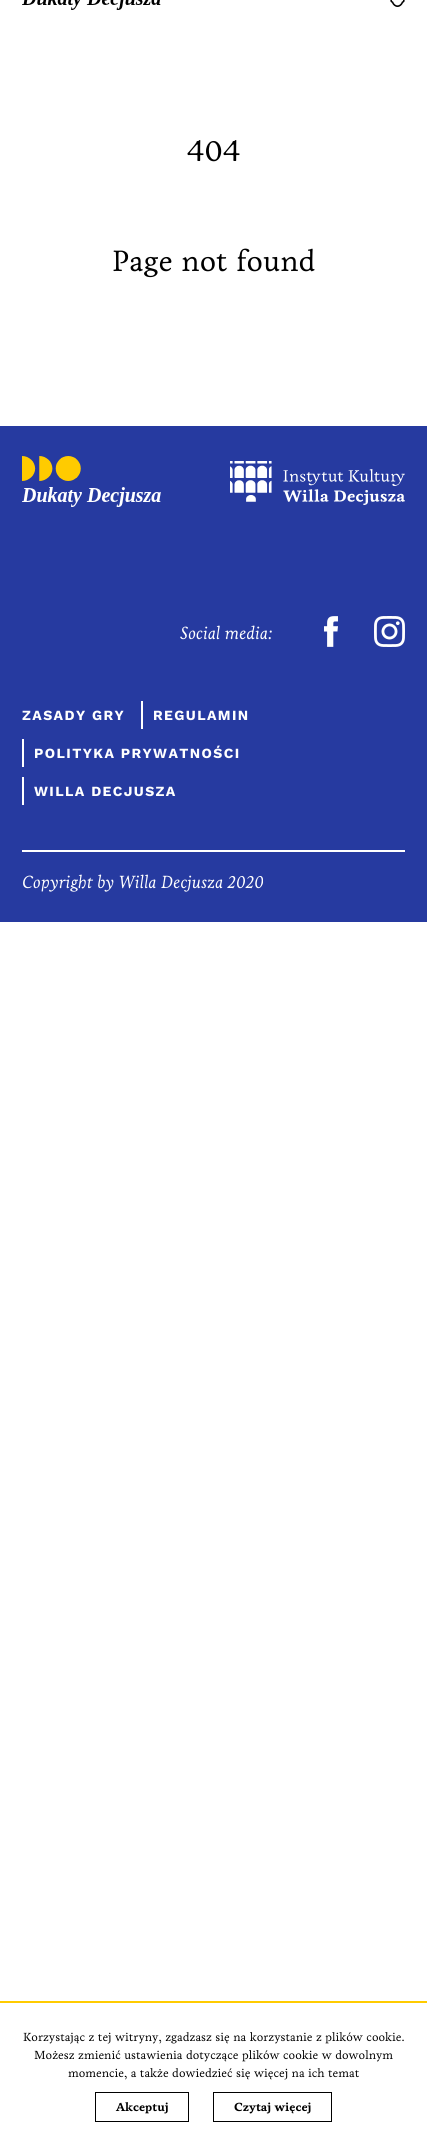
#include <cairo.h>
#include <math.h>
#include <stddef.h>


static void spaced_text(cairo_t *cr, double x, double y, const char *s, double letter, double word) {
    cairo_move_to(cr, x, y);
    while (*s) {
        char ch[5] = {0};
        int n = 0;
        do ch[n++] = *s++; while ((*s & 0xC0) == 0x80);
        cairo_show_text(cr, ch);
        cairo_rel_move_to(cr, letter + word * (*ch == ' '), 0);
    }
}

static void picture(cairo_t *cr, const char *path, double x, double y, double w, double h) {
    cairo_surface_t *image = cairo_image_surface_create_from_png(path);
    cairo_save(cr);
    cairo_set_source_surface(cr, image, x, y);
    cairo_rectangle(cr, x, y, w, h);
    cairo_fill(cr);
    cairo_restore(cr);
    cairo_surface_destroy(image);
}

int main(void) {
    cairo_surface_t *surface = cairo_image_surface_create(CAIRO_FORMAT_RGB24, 427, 2147);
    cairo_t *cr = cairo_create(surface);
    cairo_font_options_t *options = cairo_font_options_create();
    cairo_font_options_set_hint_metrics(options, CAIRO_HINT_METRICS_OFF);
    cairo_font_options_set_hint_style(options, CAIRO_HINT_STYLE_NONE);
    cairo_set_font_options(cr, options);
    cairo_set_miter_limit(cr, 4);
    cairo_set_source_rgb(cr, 1, 1, 1);
    cairo_paint(cr);
    picture(cr, "img1.png", 22, 0, 139, 10);
    picture(cr, "img2.png", 390, 0, 15, 7);
    cairo_select_font_face(cr, "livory", CAIRO_FONT_SLANT_NORMAL, CAIRO_FONT_WEIGHT_NORMAL);
    cairo_set_font_size(cr, 30);
    cairo_set_source_rgb(cr, 0, 0, 0);
    cairo_move_to(cr, 187, 161);
    cairo_show_text(cr, "404");
    cairo_move_to(cr, 112, 271);
    cairo_show_text(cr, "Page not found");
    cairo_set_source_rgb(cr, 0.149, 0.227, 0.627);
    cairo_rectangle(cr, 0, 426, 427, 496);
    cairo_fill(cr);
    picture(cr, "img3.png", 22, 456, 139, 51);
    picture(cr, "img4.png", 230, 461, 175, 44);
    cairo_select_font_face(cr, "livory", CAIRO_FONT_SLANT_ITALIC, CAIRO_FONT_WEIGHT_NORMAL);
    cairo_set_font_size(cr, 18);
    cairo_set_source_rgb(cr, 1, 1, 1);
    cairo_move_to(cr, 180, 639);
    cairo_show_text(cr, "Social media:");
    picture(cr, "img5.png", 324, 616, 14, 31);
    picture(cr, "img6.png", 374, 616, 31, 31);
    cairo_select_font_face(cr, "Work Sans", CAIRO_FONT_SLANT_NORMAL, CAIRO_FONT_WEIGHT_BOLD);
    cairo_set_font_size(cr, 14);
    spaced_text(cr, 22, 720, "ZASADY GRY", 1.4, 0);
    cairo_rectangle(cr, 141, 701, 2, 28);
    cairo_fill(cr);
    spaced_text(cr, 153, 720, "REGULAMIN", 1.4, 0);
    cairo_rectangle(cr, 22, 739, 2, 28);
    cairo_fill(cr);
    spaced_text(cr, 34, 758, "POLITYKA PRYWATNOŚCI", 1.4, 0);
    cairo_rectangle(cr, 22, 777, 2, 28);
    cairo_fill(cr);
    spaced_text(cr, 34, 796, "WILLA DECJUSZA", 1.4, 0);
    cairo_rectangle(cr, 22, 850, 383, 2);
    cairo_fill(cr);
    cairo_select_font_face(cr, "livory", CAIRO_FONT_SLANT_ITALIC, CAIRO_FONT_WEIGHT_NORMAL);
    cairo_set_font_size(cr, 18);
    cairo_move_to(cr, 22, 888);
    cairo_show_text(cr, "Copyright by Willa Decjusza 2020");
    cairo_set_source_rgb(cr, 1, 0.796, 0);
    cairo_rectangle(cr, 0, 2001, 427, 2);
    cairo_fill(cr);
    cairo_select_font_face(cr, "livory", CAIRO_FONT_SLANT_NORMAL, CAIRO_FONT_WEIGHT_NORMAL);
    cairo_set_font_size(cr, 12);
    cairo_set_source_rgb(cr, 0, 0, 0);
    cairo_move_to(cr, 23, 2041);
    cairo_show_text(cr, "Korzystając z tej witryny, zgadzasz się na korzystanie z plików cookie.");
    cairo_move_to(cr, 34, 2059);
    cairo_show_text(cr, "Możesz zmienić ustawienia dotyczące plików cookie w dowolnym");
    cairo_move_to(cr, 68, 2077);
    cairo_show_text(cr, "momencie, a także dowiedzieć się więcej na ich temat");
    cairo_rectangle(cr, 95.5, 2092.5, 93, 29);
    cairo_set_line_width(cr, 1);
    cairo_stroke(cr);
    cairo_select_font_face(cr, "livory Medium", CAIRO_FONT_SLANT_NORMAL, CAIRO_FONT_WEIGHT_NORMAL);
    cairo_move_to(cr, 116, 2111);
    cairo_show_text(cr, "Akceptuj");
    cairo_rectangle(cr, 213.5, 2092.5, 118, 29);
    cairo_stroke(cr);
    cairo_move_to(cr, 234, 2111);
    cairo_show_text(cr, "Czytaj więcej");
    cairo_surface_write_to_png(surface, "page.png");
    cairo_font_options_destroy(options);
    cairo_destroy(cr);
    cairo_surface_destroy(surface);
    return 0;
}
